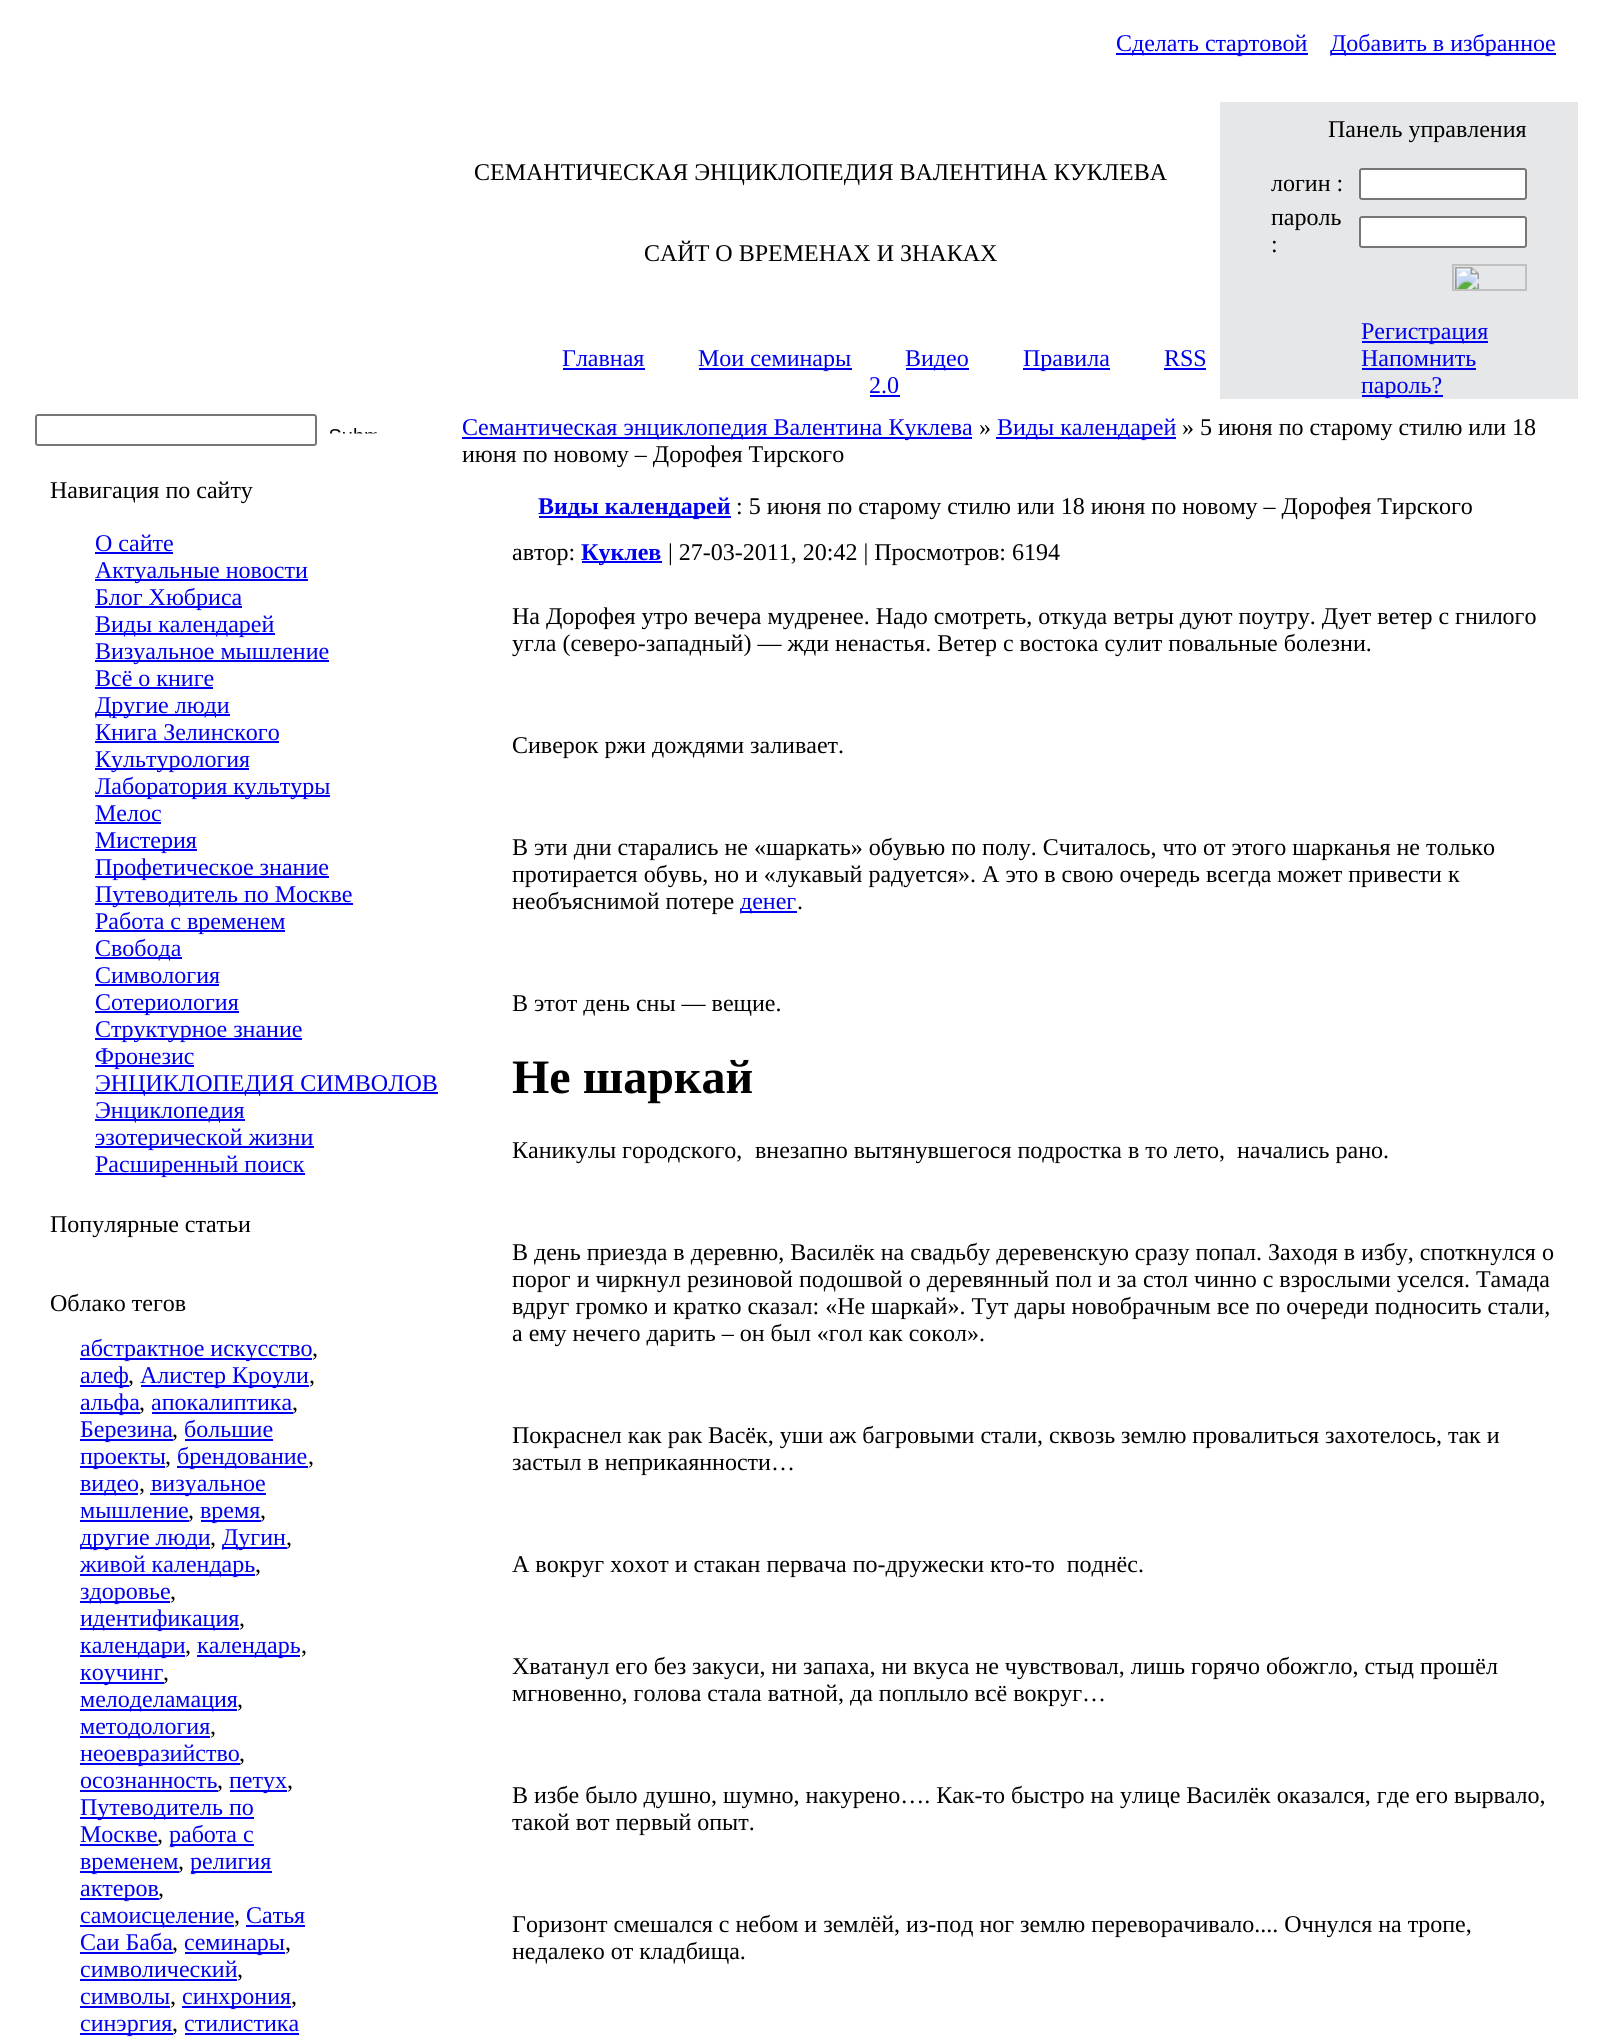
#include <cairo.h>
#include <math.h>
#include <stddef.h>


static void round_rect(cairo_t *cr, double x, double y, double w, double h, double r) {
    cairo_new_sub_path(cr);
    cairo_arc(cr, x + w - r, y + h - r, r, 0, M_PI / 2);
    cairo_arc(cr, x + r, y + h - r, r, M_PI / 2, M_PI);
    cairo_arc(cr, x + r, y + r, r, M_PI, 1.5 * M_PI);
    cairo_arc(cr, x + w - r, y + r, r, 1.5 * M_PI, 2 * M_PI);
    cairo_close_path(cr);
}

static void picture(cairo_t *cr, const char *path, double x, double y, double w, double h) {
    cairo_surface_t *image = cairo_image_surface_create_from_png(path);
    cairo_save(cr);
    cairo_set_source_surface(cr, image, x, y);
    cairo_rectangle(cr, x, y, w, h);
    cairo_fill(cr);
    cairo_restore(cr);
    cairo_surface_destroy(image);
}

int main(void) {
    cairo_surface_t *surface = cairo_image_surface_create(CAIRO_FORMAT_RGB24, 1605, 2037);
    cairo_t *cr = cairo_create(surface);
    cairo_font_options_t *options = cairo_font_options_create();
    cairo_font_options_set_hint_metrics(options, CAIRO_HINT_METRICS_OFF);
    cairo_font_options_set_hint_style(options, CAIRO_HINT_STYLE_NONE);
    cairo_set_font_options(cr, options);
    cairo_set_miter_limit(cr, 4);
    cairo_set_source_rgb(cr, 1, 1, 1);
    cairo_paint(cr);
    cairo_set_source_rgb(cr, 0, 0, 0.933);
    cairo_rectangle(cr, 1116, 53, 192, 2);
    cairo_fill(cr);
    cairo_select_font_face(cr, "Liberation Serif", CAIRO_FONT_SLANT_NORMAL, CAIRO_FONT_WEIGHT_NORMAL);
    cairo_set_font_size(cr, 24);
    cairo_move_to(cr, 1116, 51);
    cairo_show_text(cr, "Сделать стартовой");
    cairo_rectangle(cr, 1331, 53, 225, 2);
    cairo_fill(cr);
    cairo_move_to(cr, 1330, 51);
    cairo_show_text(cr, "Добавить в избранное");
    cairo_set_source_rgb(cr, 0, 0, 0);
    cairo_move_to(cr, 474, 180);
    cairo_show_text(cr, "СЕМАНТИЧЕСКАЯ ЭНЦИКЛОПЕДИЯ ВАЛЕНТИНА КУКЛЕВА");
    cairo_move_to(cr, 644, 261);
    cairo_show_text(cr, "САЙТ О ВРЕМЕНАХ И ЗНАКАХ");
    cairo_set_source_rgb(cr, 0.902, 0.906, 0.91);
    cairo_rectangle(cr, 1220, 102, 358, 297);
    cairo_fill(cr);
    cairo_set_source_rgb(cr, 0, 0, 0);
    cairo_move_to(cr, 1328, 137);
    cairo_show_text(cr, "Панель управления");
    cairo_move_to(cr, 1271, 191);
    cairo_show_text(cr, "логин :");
    cairo_set_source_rgb(cr, 1, 1, 1);
    round_rect(cr, 1360, 169, 166, 30, 2);
    cairo_fill_preserve(cr);
    cairo_set_source_rgb(cr, 0.463, 0.463, 0.463);
    cairo_stroke(cr);
    cairo_set_source_rgb(cr, 0, 0, 0);
    cairo_move_to(cr, 1271, 225);
    cairo_show_text(cr, "пароль");
    cairo_move_to(cr, 1271, 252);
    cairo_show_text(cr, ":");
    cairo_set_source_rgb(cr, 1, 1, 1);
    round_rect(cr, 1360, 217, 166, 30, 2);
    cairo_fill_preserve(cr);
    cairo_set_source_rgb(cr, 0.463, 0.463, 0.463);
    cairo_stroke(cr);
    picture(cr, "img1.png", 1455, 267, 24, 22);
    cairo_rectangle(cr, 1453, 265, 73, 25);
    cairo_set_source_rgb(cr, 0.753, 0.753, 0.753);
    cairo_stroke(cr);
    cairo_set_source_rgb(cr, 0, 0, 0.933);
    cairo_rectangle(cr, 1362, 341, 126, 2);
    cairo_fill(cr);
    cairo_move_to(cr, 1361, 339);
    cairo_show_text(cr, "Регистрация");
    cairo_move_to(cr, 1361, 366);
    cairo_show_text(cr, "Напомнить");
    cairo_rectangle(cr, 1362, 368, 114, 2);
    cairo_fill(cr);
    cairo_rectangle(cr, 1362, 395, 81, 2);
    cairo_fill(cr);
    cairo_move_to(cr, 1361, 393);
    cairo_show_text(cr, "пароль?");
    cairo_move_to(cr, 562, 366);
    cairo_show_text(cr, "Главная");
    cairo_rectangle(cr, 563, 368, 82, 2);
    cairo_fill(cr);
    cairo_rectangle(cr, 699, 368, 153, 2);
    cairo_fill(cr);
    cairo_move_to(cr, 698, 366);
    cairo_show_text(cr, "Мои семинары");
    cairo_rectangle(cr, 906, 368, 63, 2);
    cairo_fill(cr);
    cairo_move_to(cr, 905, 366);
    cairo_show_text(cr, "Видео");
    cairo_rectangle(cr, 1023, 368, 87, 2);
    cairo_fill(cr);
    cairo_move_to(cr, 1023, 366);
    cairo_show_text(cr, "Правила");
    cairo_move_to(cr, 1164, 366);
    cairo_show_text(cr, "RSS");
    cairo_rectangle(cr, 1164, 368, 42, 2);
    cairo_fill(cr);
    cairo_move_to(cr, 869, 393);
    cairo_show_text(cr, "2.0");
    cairo_rectangle(cr, 870, 395, 30, 2);
    cairo_fill(cr);
    round_rect(cr, 36, 415, 280, 30, 2);
    cairo_set_source_rgb(cr, 0.463, 0.463, 0.463);
    cairo_stroke(cr);
    picture(cr, "img2.png", 330, 428, 47, 6);
    cairo_set_source_rgb(cr, 0, 0, 0.933);
    cairo_rectangle(cr, 462, 437, 510, 2);
    cairo_fill(cr);
    cairo_move_to(cr, 462, 435);
    cairo_show_text(cr, "Семантическая энциклопедия Валентина Куклева");
    cairo_set_source_rgb(cr, 0, 0, 0);
    cairo_move_to(cr, 979, 435);
    cairo_show_text(cr, "»");
    cairo_set_source_rgb(cr, 0, 0, 0.933);
    cairo_rectangle(cr, 996, 437, 180, 2);
    cairo_fill(cr);
    cairo_move_to(cr, 997, 435);
    cairo_show_text(cr, "Виды календарей");
    cairo_set_source_rgb(cr, 0, 0, 0);
    cairo_move_to(cr, 1182, 435);
    cairo_show_text(cr, "» 5 июня по старому стилю или 18");
    cairo_move_to(cr, 462, 462);
    cairo_show_text(cr, "июня по новому – Дорофея Тирского");
    cairo_move_to(cr, 50, 498);
    cairo_show_text(cr, "Навигация по сайту");
    cairo_set_source_rgb(cr, 0, 0, 0.933);
    cairo_move_to(cr, 95, 551);
    cairo_show_text(cr, "О сайте");
    cairo_rectangle(cr, 95, 552, 78, 2);
    cairo_fill(cr);
    cairo_rectangle(cr, 95, 579, 213, 2);
    cairo_fill(cr);
    cairo_move_to(cr, 95, 578);
    cairo_show_text(cr, "Актуальные новости");
    cairo_rectangle(cr, 95, 606, 147, 2);
    cairo_fill(cr);
    cairo_move_to(cr, 95, 605);
    cairo_show_text(cr, "Блог Хюбриса");
    cairo_rectangle(cr, 95, 633, 180, 2);
    cairo_fill(cr);
    cairo_move_to(cr, 95, 632);
    cairo_show_text(cr, "Виды календарей");
    cairo_rectangle(cr, 95, 660, 234, 2);
    cairo_fill(cr);
    cairo_move_to(cr, 95, 659);
    cairo_show_text(cr, "Визуальное мышление");
    cairo_move_to(cr, 95, 686);
    cairo_show_text(cr, "Всё о книге");
    cairo_rectangle(cr, 95, 687, 118, 2);
    cairo_fill(cr);
    cairo_rectangle(cr, 95, 714, 135, 2);
    cairo_fill(cr);
    cairo_move_to(cr, 95, 713);
    cairo_show_text(cr, "Другие люди");
    cairo_move_to(cr, 95, 740);
    cairo_show_text(cr, "Книга Зелинского");
    cairo_rectangle(cr, 95, 741, 184, 2);
    cairo_fill(cr);
    cairo_rectangle(cr, 95, 768, 154, 2);
    cairo_fill(cr);
    cairo_move_to(cr, 95, 767);
    cairo_show_text(cr, "Культурология");
    cairo_rectangle(cr, 95, 795, 235, 2);
    cairo_fill(cr);
    cairo_move_to(cr, 95, 794);
    cairo_show_text(cr, "Лаборатория культуры");
    cairo_move_to(cr, 95, 821);
    cairo_show_text(cr, "Мелос");
    cairo_rectangle(cr, 95, 822, 66, 2);
    cairo_fill(cr);
    cairo_rectangle(cr, 95, 849, 102, 2);
    cairo_fill(cr);
    cairo_move_to(cr, 95, 848);
    cairo_show_text(cr, "Мистерия");
    cairo_rectangle(cr, 95, 876, 234, 2);
    cairo_fill(cr);
    cairo_move_to(cr, 95, 875);
    cairo_show_text(cr, "Профетическое знание");
    cairo_rectangle(cr, 95, 903, 258, 2);
    cairo_fill(cr);
    cairo_move_to(cr, 95, 902);
    cairo_show_text(cr, "Путеводитель по Москве");
    cairo_rectangle(cr, 95, 930, 190, 2);
    cairo_fill(cr);
    cairo_move_to(cr, 95, 929);
    cairo_show_text(cr, "Работа с временем");
    cairo_rectangle(cr, 95, 957, 87, 2);
    cairo_fill(cr);
    cairo_move_to(cr, 95, 956);
    cairo_show_text(cr, "Свобода");
    cairo_move_to(cr, 95, 983);
    cairo_show_text(cr, "Симвология");
    cairo_rectangle(cr, 95, 984, 124, 2);
    cairo_fill(cr);
    cairo_rectangle(cr, 95, 1011, 144, 2);
    cairo_fill(cr);
    cairo_move_to(cr, 95, 1010);
    cairo_show_text(cr, "Сотериология");
    cairo_rectangle(cr, 95, 1038, 207, 2);
    cairo_fill(cr);
    cairo_move_to(cr, 95, 1037);
    cairo_show_text(cr, "Структурное знание");
    cairo_rectangle(cr, 95, 1065, 99, 2);
    cairo_fill(cr);
    cairo_move_to(cr, 95, 1064);
    cairo_show_text(cr, "Фронезис");
    cairo_rectangle(cr, 95, 1092, 343, 2);
    cairo_fill(cr);
    cairo_move_to(cr, 95, 1091);
    cairo_show_text(cr, "ЭНЦИКЛОПЕДИЯ СИМВОЛОВ");
    cairo_rectangle(cr, 95, 1119, 150, 2);
    cairo_fill(cr);
    cairo_move_to(cr, 95, 1118);
    cairo_show_text(cr, "Энциклопедия");
    cairo_rectangle(cr, 95, 1146, 219, 2);
    cairo_fill(cr);
    cairo_move_to(cr, 95, 1145);
    cairo_show_text(cr, "эзотерической жизни");
    cairo_rectangle(cr, 95, 1173, 210, 2);
    cairo_fill(cr);
    cairo_move_to(cr, 95, 1172);
    cairo_show_text(cr, "Расширенный поиск");
    cairo_set_source_rgb(cr, 0, 0, 0);
    cairo_move_to(cr, 50, 1232);
    cairo_show_text(cr, "Популярные статьи");
    cairo_move_to(cr, 50, 1311);
    cairo_show_text(cr, "Облако тегов");
    cairo_set_source_rgb(cr, 0, 0, 0.933);
    cairo_rectangle(cr, 80, 1358, 232, 2);
    cairo_fill(cr);
    cairo_move_to(cr, 80, 1356);
    cairo_show_text(cr, "абстрактное искусство");
    cairo_set_source_rgb(cr, 0, 0, 0);
    cairo_move_to(cr, 312, 1356);
    cairo_show_text(cr, ",");
    cairo_set_source_rgb(cr, 0, 0, 0.933);
    cairo_rectangle(cr, 80, 1385, 49, 2);
    cairo_fill(cr);
    cairo_move_to(cr, 80, 1383);
    cairo_show_text(cr, "алеф");
    cairo_set_source_rgb(cr, 0, 0, 0);
    cairo_move_to(cr, 128, 1383);
    cairo_show_text(cr, ",");
    cairo_set_source_rgb(cr, 0, 0, 0.933);
    cairo_rectangle(cr, 141, 1385, 168, 2);
    cairo_fill(cr);
    cairo_move_to(cr, 140, 1383);
    cairo_show_text(cr, "Алистер Кроули");
    cairo_set_source_rgb(cr, 0, 0, 0);
    cairo_move_to(cr, 309, 1383);
    cairo_show_text(cr, ",");
    cairo_set_source_rgb(cr, 0, 0, 0.933);
    cairo_rectangle(cr, 80, 1412, 60, 2);
    cairo_fill(cr);
    cairo_move_to(cr, 80, 1410);
    cairo_show_text(cr, "альфа");
    cairo_set_source_rgb(cr, 0, 0, 0);
    cairo_move_to(cr, 139, 1410);
    cairo_show_text(cr, ",");
    cairo_set_source_rgb(cr, 0, 0, 0.933);
    cairo_move_to(cr, 151, 1410);
    cairo_show_text(cr, "апокалиптика");
    cairo_rectangle(cr, 152, 1412, 141, 2);
    cairo_fill(cr);
    cairo_set_source_rgb(cr, 0, 0, 0);
    cairo_move_to(cr, 292, 1410);
    cairo_show_text(cr, ",");
    cairo_set_source_rgb(cr, 0, 0, 0.933);
    cairo_rectangle(cr, 80, 1439, 93, 2);
    cairo_fill(cr);
    cairo_move_to(cr, 80, 1437);
    cairo_show_text(cr, "Березина");
    cairo_set_source_rgb(cr, 0, 0, 0);
    cairo_move_to(cr, 172, 1437);
    cairo_show_text(cr, ",");
    cairo_set_source_rgb(cr, 0, 0, 0.933);
    cairo_move_to(cr, 184, 1437);
    cairo_show_text(cr, "большие");
    cairo_rectangle(cr, 185, 1439, 88, 2);
    cairo_fill(cr);
    cairo_rectangle(cr, 80, 1466, 85, 2);
    cairo_fill(cr);
    cairo_move_to(cr, 80, 1464);
    cairo_show_text(cr, "проекты");
    cairo_set_source_rgb(cr, 0, 0, 0);
    cairo_move_to(cr, 165, 1464);
    cairo_show_text(cr, ",");
    cairo_set_source_rgb(cr, 0, 0, 0.933);
    cairo_rectangle(cr, 177, 1466, 131, 2);
    cairo_fill(cr);
    cairo_move_to(cr, 177, 1464);
    cairo_show_text(cr, "брендование");
    cairo_set_source_rgb(cr, 0, 0, 0);
    cairo_move_to(cr, 308, 1464);
    cairo_show_text(cr, ",");
    cairo_set_source_rgb(cr, 0, 0, 0.933);
    cairo_rectangle(cr, 80, 1493, 58, 2);
    cairo_fill(cr);
    cairo_move_to(cr, 80, 1491);
    cairo_show_text(cr, "видео");
    cairo_set_source_rgb(cr, 0, 0, 0);
    cairo_move_to(cr, 139, 1491);
    cairo_show_text(cr, ",");
    cairo_set_source_rgb(cr, 0, 0, 0.933);
    cairo_rectangle(cr, 150, 1493, 116, 2);
    cairo_fill(cr);
    cairo_move_to(cr, 151, 1491);
    cairo_show_text(cr, "визуальное");
    cairo_move_to(cr, 80, 1518);
    cairo_show_text(cr, "мышление");
    cairo_rectangle(cr, 80, 1520, 109, 2);
    cairo_fill(cr);
    cairo_set_source_rgb(cr, 0, 0, 0);
    cairo_move_to(cr, 188, 1518);
    cairo_show_text(cr, ",");
    cairo_set_source_rgb(cr, 0, 0, 0.933);
    cairo_rectangle(cr, 201, 1520, 60, 2);
    cairo_fill(cr);
    cairo_move_to(cr, 200, 1518);
    cairo_show_text(cr, "время");
    cairo_set_source_rgb(cr, 0, 0, 0);
    cairo_move_to(cr, 260, 1518);
    cairo_show_text(cr, ",");
    cairo_set_source_rgb(cr, 0, 0, 0.933);
    cairo_rectangle(cr, 80, 1547, 130, 2);
    cairo_fill(cr);
    cairo_move_to(cr, 80, 1545);
    cairo_show_text(cr, "другие люди");
    cairo_set_source_rgb(cr, 0, 0, 0);
    cairo_move_to(cr, 210, 1545);
    cairo_show_text(cr, ",");
    cairo_set_source_rgb(cr, 0, 0, 0.933);
    cairo_rectangle(cr, 222, 1547, 65, 2);
    cairo_fill(cr);
    cairo_move_to(cr, 222, 1545);
    cairo_show_text(cr, "Дугин");
    cairo_set_source_rgb(cr, 0, 0, 0);
    cairo_move_to(cr, 286, 1545);
    cairo_show_text(cr, ",");
    cairo_set_source_rgb(cr, 0, 0, 0.933);
    cairo_rectangle(cr, 80, 1574, 175, 2);
    cairo_fill(cr);
    cairo_move_to(cr, 80, 1572);
    cairo_show_text(cr, "живой календарь");
    cairo_set_source_rgb(cr, 0, 0, 0);
    cairo_move_to(cr, 255, 1572);
    cairo_show_text(cr, ",");
    cairo_set_source_rgb(cr, 0, 0, 0.933);
    cairo_rectangle(cr, 80, 1601, 90, 2);
    cairo_fill(cr);
    cairo_move_to(cr, 80, 1599);
    cairo_show_text(cr, "здоровье");
    cairo_set_source_rgb(cr, 0, 0, 0);
    cairo_move_to(cr, 170, 1599);
    cairo_show_text(cr, ",");
    cairo_set_source_rgb(cr, 0, 0, 0.933);
    cairo_rectangle(cr, 80, 1628, 159, 2);
    cairo_fill(cr);
    cairo_move_to(cr, 80, 1626);
    cairo_show_text(cr, "идентификация");
    cairo_set_source_rgb(cr, 0, 0, 0);
    cairo_move_to(cr, 239, 1626);
    cairo_show_text(cr, ",");
    cairo_set_source_rgb(cr, 0, 0, 0.933);
    cairo_rectangle(cr, 80, 1655, 105, 2);
    cairo_fill(cr);
    cairo_move_to(cr, 80, 1653);
    cairo_show_text(cr, "календари");
    cairo_set_source_rgb(cr, 0, 0, 0);
    cairo_move_to(cr, 185, 1653);
    cairo_show_text(cr, ",");
    cairo_set_source_rgb(cr, 0, 0, 0.933);
    cairo_rectangle(cr, 197, 1655, 103, 2);
    cairo_fill(cr);
    cairo_move_to(cr, 197, 1653);
    cairo_show_text(cr, "календарь");
    cairo_set_source_rgb(cr, 0, 0, 0);
    cairo_move_to(cr, 301, 1653);
    cairo_show_text(cr, ",");
    cairo_set_source_rgb(cr, 0, 0, 0.933);
    cairo_rectangle(cr, 80, 1682, 84, 2);
    cairo_fill(cr);
    cairo_move_to(cr, 80, 1680);
    cairo_show_text(cr, "коучинг");
    cairo_set_source_rgb(cr, 0, 0, 0);
    cairo_move_to(cr, 163, 1680);
    cairo_show_text(cr, ",");
    cairo_set_source_rgb(cr, 0, 0, 0.933);
    cairo_rectangle(cr, 80, 1709, 157, 2);
    cairo_fill(cr);
    cairo_move_to(cr, 80, 1707);
    cairo_show_text(cr, "мелоделамация");
    cairo_set_source_rgb(cr, 0, 0, 0);
    cairo_move_to(cr, 237, 1707);
    cairo_show_text(cr, ",");
    cairo_set_source_rgb(cr, 0, 0, 0.933);
    cairo_rectangle(cr, 80, 1736, 130, 2);
    cairo_fill(cr);
    cairo_move_to(cr, 80, 1734);
    cairo_show_text(cr, "методология");
    cairo_set_source_rgb(cr, 0, 0, 0);
    cairo_move_to(cr, 210, 1734);
    cairo_show_text(cr, ",");
    cairo_set_source_rgb(cr, 0, 0, 0.933);
    cairo_rectangle(cr, 80, 1763, 160, 2);
    cairo_fill(cr);
    cairo_move_to(cr, 80, 1761);
    cairo_show_text(cr, "неоевразийство");
    cairo_set_source_rgb(cr, 0, 0, 0);
    cairo_move_to(cr, 239, 1761);
    cairo_show_text(cr, ",");
    cairo_set_source_rgb(cr, 0, 0, 0.933);
    cairo_move_to(cr, 80, 1788);
    cairo_show_text(cr, "осознанность");
    cairo_rectangle(cr, 80, 1790, 138, 2);
    cairo_fill(cr);
    cairo_set_source_rgb(cr, 0, 0, 0);
    cairo_move_to(cr, 217, 1788);
    cairo_show_text(cr, ",");
    cairo_set_source_rgb(cr, 0, 0, 0.933);
    cairo_rectangle(cr, 230, 1790, 57, 2);
    cairo_fill(cr);
    cairo_move_to(cr, 229, 1788);
    cairo_show_text(cr, "петух");
    cairo_set_source_rgb(cr, 0, 0, 0);
    cairo_move_to(cr, 287, 1788);
    cairo_show_text(cr, ",");
    cairo_set_source_rgb(cr, 0, 0, 0.933);
    cairo_rectangle(cr, 80, 1817, 174, 2);
    cairo_fill(cr);
    cairo_move_to(cr, 80, 1815);
    cairo_show_text(cr, "Путеводитель по");
    cairo_move_to(cr, 80, 1842);
    cairo_show_text(cr, "Москве");
    cairo_rectangle(cr, 80, 1844, 78, 2);
    cairo_fill(cr);
    cairo_set_source_rgb(cr, 0, 0, 0);
    cairo_move_to(cr, 157, 1842);
    cairo_show_text(cr, ",");
    cairo_set_source_rgb(cr, 0, 0, 0.933);
    cairo_rectangle(cr, 170, 1844, 84, 2);
    cairo_fill(cr);
    cairo_move_to(cr, 169, 1842);
    cairo_show_text(cr, "работа с");
    cairo_rectangle(cr, 80, 1871, 99, 2);
    cairo_fill(cr);
    cairo_move_to(cr, 80, 1869);
    cairo_show_text(cr, "временем");
    cairo_set_source_rgb(cr, 0, 0, 0);
    cairo_move_to(cr, 178, 1869);
    cairo_show_text(cr, ",");
    cairo_set_source_rgb(cr, 0, 0, 0.933);
    cairo_rectangle(cr, 191, 1871, 81, 2);
    cairo_fill(cr);
    cairo_move_to(cr, 190, 1869);
    cairo_show_text(cr, "религия");
    cairo_rectangle(cr, 80, 1898, 79, 2);
    cairo_fill(cr);
    cairo_move_to(cr, 80, 1896);
    cairo_show_text(cr, "актеров");
    cairo_set_source_rgb(cr, 0, 0, 0);
    cairo_move_to(cr, 158, 1896);
    cairo_show_text(cr, ",");
    cairo_set_source_rgb(cr, 0, 0, 0.933);
    cairo_rectangle(cr, 80, 1925, 154, 2);
    cairo_fill(cr);
    cairo_move_to(cr, 80, 1923);
    cairo_show_text(cr, "самоисцеление");
    cairo_set_source_rgb(cr, 0, 0, 0);
    cairo_move_to(cr, 234, 1923);
    cairo_show_text(cr, ",");
    cairo_set_source_rgb(cr, 0, 0, 0.933);
    cairo_move_to(cr, 246, 1923);
    cairo_show_text(cr, "Сатья");
    cairo_rectangle(cr, 246, 1925, 59, 2);
    cairo_fill(cr);
    cairo_move_to(cr, 80, 1950);
    cairo_show_text(cr, "Саи Баба");
    cairo_rectangle(cr, 80, 1952, 93, 2);
    cairo_fill(cr);
    cairo_set_source_rgb(cr, 0, 0, 0);
    cairo_move_to(cr, 172, 1950);
    cairo_show_text(cr, ",");
    cairo_set_source_rgb(cr, 0, 0, 0.933);
    cairo_rectangle(cr, 185, 1952, 100, 2);
    cairo_fill(cr);
    cairo_move_to(cr, 184, 1950);
    cairo_show_text(cr, "семинары");
    cairo_set_source_rgb(cr, 0, 0, 0);
    cairo_move_to(cr, 285, 1950);
    cairo_show_text(cr, ",");
    cairo_set_source_rgb(cr, 0, 0, 0.933);
    cairo_move_to(cr, 80, 1977);
    cairo_show_text(cr, "символический");
    cairo_rectangle(cr, 80, 1979, 157, 2);
    cairo_fill(cr);
    cairo_set_source_rgb(cr, 0, 0, 0);
    cairo_move_to(cr, 237, 1977);
    cairo_show_text(cr, ",");
    cairo_set_source_rgb(cr, 0, 0, 0.933);
    cairo_move_to(cr, 80, 2004);
    cairo_show_text(cr, "символы");
    cairo_rectangle(cr, 80, 2006, 90, 2);
    cairo_fill(cr);
    cairo_set_source_rgb(cr, 0, 0, 0);
    cairo_move_to(cr, 170, 2004);
    cairo_show_text(cr, ",");
    cairo_set_source_rgb(cr, 0, 0, 0.933);
    cairo_rectangle(cr, 182, 2006, 109, 2);
    cairo_fill(cr);
    cairo_move_to(cr, 182, 2004);
    cairo_show_text(cr, "синхрония");
    cairo_set_source_rgb(cr, 0, 0, 0);
    cairo_move_to(cr, 291, 2004);
    cairo_show_text(cr, ",");
    cairo_set_source_rgb(cr, 0, 0, 0.933);
    cairo_rectangle(cr, 80, 2033, 93, 2);
    cairo_fill(cr);
    cairo_move_to(cr, 80, 2031);
    cairo_show_text(cr, "синэргия");
    cairo_set_source_rgb(cr, 0, 0, 0);
    cairo_move_to(cr, 172, 2031);
    cairo_show_text(cr, ",");
    cairo_set_source_rgb(cr, 0, 0, 0.933);
    cairo_move_to(cr, 184, 2031);
    cairo_show_text(cr, "стилистика");
    cairo_rectangle(cr, 185, 2033, 114, 2);
    cairo_fill(cr);
    cairo_rectangle(cr, 539, 516, 192, 2);
    cairo_fill(cr);
    cairo_select_font_face(cr, "Liberation Serif", CAIRO_FONT_SLANT_NORMAL, CAIRO_FONT_WEIGHT_BOLD);
    cairo_move_to(cr, 538, 514);
    cairo_show_text(cr, "Виды календарей");
    cairo_select_font_face(cr, "Liberation Serif", CAIRO_FONT_SLANT_NORMAL, CAIRO_FONT_WEIGHT_NORMAL);
    cairo_set_source_rgb(cr, 0, 0, 0);
    cairo_move_to(cr, 736, 514);
    cairo_show_text(cr, ": 5 июня по старому стилю или 18 июня по новому – Дорофея Тирского");
    cairo_move_to(cr, 512, 560);
    cairo_show_text(cr, "автор:");
    cairo_set_source_rgb(cr, 0, 0, 0.933);
    cairo_rectangle(cr, 582, 561, 80, 2);
    cairo_fill(cr);
    cairo_select_font_face(cr, "Liberation Serif", CAIRO_FONT_SLANT_NORMAL, CAIRO_FONT_WEIGHT_BOLD);
    cairo_move_to(cr, 581, 560);
    cairo_show_text(cr, "Куклев");
    cairo_select_font_face(cr, "Liberation Serif", CAIRO_FONT_SLANT_NORMAL, CAIRO_FONT_WEIGHT_NORMAL);
    cairo_set_source_rgb(cr, 0, 0, 0);
    cairo_move_to(cr, 668, 560);
    cairo_show_text(cr, "| 27-03-2011, 20:42 | Просмотров: 6194");
    cairo_move_to(cr, 512, 624);
    cairo_show_text(cr, "На Дорофея утро вечера мудренее. Надо смотреть, откуда ветры дуют поутру. Дует ветер с гнилого");
    cairo_move_to(cr, 512, 651);
    cairo_show_text(cr, "угла (северо-западный) — жди ненастья. Ветер с востока сулит повальные болезни.");
    cairo_move_to(cr, 512, 753);
    cairo_show_text(cr, "Сиверок ржи дождями заливает.");
    cairo_move_to(cr, 512, 855);
    cairo_show_text(cr, "В эти дни старались не «шаркать» обувью по полу. Считалось, что от этого шарканья не только");
    cairo_move_to(cr, 512, 882);
    cairo_show_text(cr, "протирается обувь, но и «лукавый радуется». А это в свою очередь всегда может привести к");
    cairo_move_to(cr, 512, 909);
    cairo_show_text(cr, "необъяснимой потере");
    cairo_set_source_rgb(cr, 0, 0, 0.933);
    cairo_rectangle(cr, 741, 911, 56, 2);
    cairo_fill(cr);
    cairo_move_to(cr, 740, 909);
    cairo_show_text(cr, "денег");
    cairo_set_source_rgb(cr, 0, 0, 0);
    cairo_move_to(cr, 797, 909);
    cairo_show_text(cr, ".");
    cairo_move_to(cr, 512, 1011);
    cairo_show_text(cr, "В этот день сны — вещие.");
    cairo_select_font_face(cr, "Liberation Serif", CAIRO_FONT_SLANT_NORMAL, CAIRO_FONT_WEIGHT_BOLD);
    cairo_set_font_size(cr, 48);
    cairo_move_to(cr, 512, 1093);
    cairo_show_text(cr, "Не шаркай");
    cairo_select_font_face(cr, "Liberation Serif", CAIRO_FONT_SLANT_NORMAL, CAIRO_FONT_WEIGHT_NORMAL);
    cairo_set_font_size(cr, 24);
    cairo_move_to(cr, 512, 1158);
    cairo_show_text(cr, "Каникулы городского,");
    cairo_move_to(cr, 755, 1158);
    cairo_show_text(cr, "внезапно вытянувшегося подростка в то лето,  начались рано.");
    cairo_move_to(cr, 512, 1260);
    cairo_show_text(cr, "В день приезда в деревню, Василёк на свадьбу деревенскую сразу попал. Заходя в избу, споткнулся о");
    cairo_move_to(cr, 512, 1287);
    cairo_show_text(cr, "порог и чиркнул резиновой подошвой о деревянный пол и за стол чинно с взрослыми уселся. Тамада");
    cairo_move_to(cr, 512, 1314);
    cairo_show_text(cr, "вдруг громко и кратко сказал: «Не шаркай». Тут дары новобрачным все по очереди подносить стали,");
    cairo_move_to(cr, 512, 1341);
    cairo_show_text(cr, "а ему нечего дарить – он был «гол как сокол».");
    cairo_move_to(cr, 512, 1443);
    cairo_show_text(cr, "Покраснел как рак Васёк, уши аж багровыми стали, сквозь землю провалиться захотелось, так и");
    cairo_move_to(cr, 512, 1470);
    cairo_show_text(cr, "застыл в неприкаянности…");
    cairo_move_to(cr, 512, 1572);
    cairo_show_text(cr, "А вокруг хохот и стакан первача по-дружески кто-то  поднёс.");
    cairo_move_to(cr, 512, 1674);
    cairo_show_text(cr, "Хватанул его без закуси, ни запаха, ни вкуса не чувствовал, лишь горячо обожгло, стыд прошёл");
    cairo_move_to(cr, 512, 1701);
    cairo_show_text(cr, "мгновенно, голова стала ватной, да поплыло всё вокруг…");
    cairo_move_to(cr, 512, 1803);
    cairo_show_text(cr, "В избе было душно, шумно, накурено…. Как-то быстро на улице Василёк оказался, где его вырвало,");
    cairo_move_to(cr, 512, 1830);
    cairo_show_text(cr, "такой вот первый опыт.");
    cairo_move_to(cr, 512, 1932);
    cairo_show_text(cr, "Горизонт смешался с небом и землёй, из-под ног землю переворачивало.... Очнулся на тропе,");
    cairo_move_to(cr, 512, 1959);
    cairo_show_text(cr, "недалеко от кладбища.");
    cairo_surface_write_to_png(surface, "page.png");
    cairo_font_options_destroy(options);
    cairo_destroy(cr);
    cairo_surface_destroy(surface);
    return 0;
}
